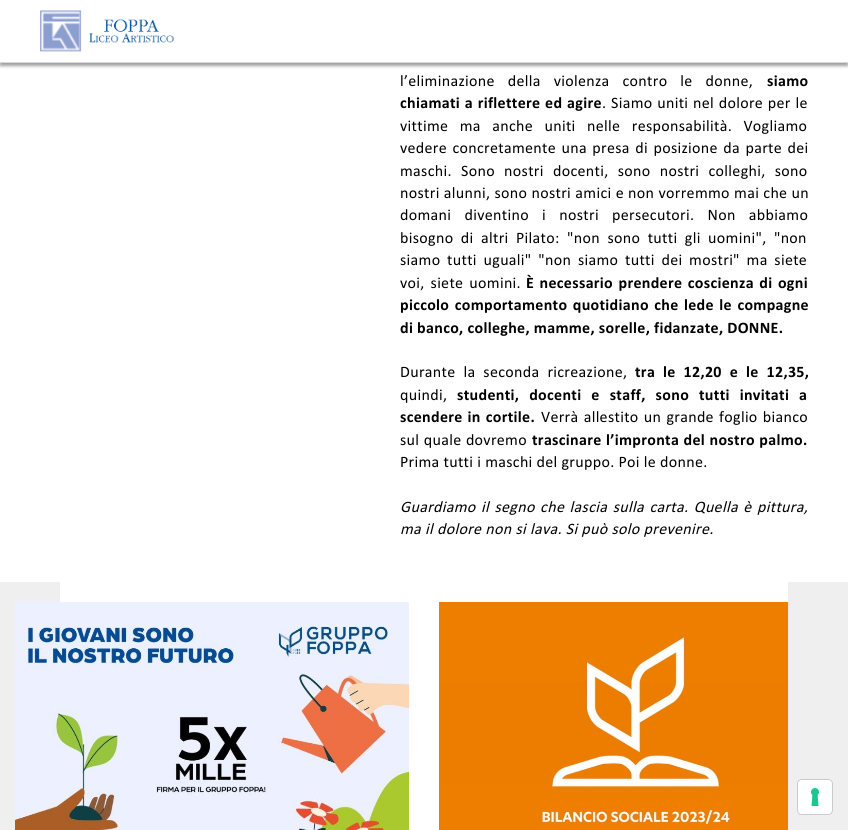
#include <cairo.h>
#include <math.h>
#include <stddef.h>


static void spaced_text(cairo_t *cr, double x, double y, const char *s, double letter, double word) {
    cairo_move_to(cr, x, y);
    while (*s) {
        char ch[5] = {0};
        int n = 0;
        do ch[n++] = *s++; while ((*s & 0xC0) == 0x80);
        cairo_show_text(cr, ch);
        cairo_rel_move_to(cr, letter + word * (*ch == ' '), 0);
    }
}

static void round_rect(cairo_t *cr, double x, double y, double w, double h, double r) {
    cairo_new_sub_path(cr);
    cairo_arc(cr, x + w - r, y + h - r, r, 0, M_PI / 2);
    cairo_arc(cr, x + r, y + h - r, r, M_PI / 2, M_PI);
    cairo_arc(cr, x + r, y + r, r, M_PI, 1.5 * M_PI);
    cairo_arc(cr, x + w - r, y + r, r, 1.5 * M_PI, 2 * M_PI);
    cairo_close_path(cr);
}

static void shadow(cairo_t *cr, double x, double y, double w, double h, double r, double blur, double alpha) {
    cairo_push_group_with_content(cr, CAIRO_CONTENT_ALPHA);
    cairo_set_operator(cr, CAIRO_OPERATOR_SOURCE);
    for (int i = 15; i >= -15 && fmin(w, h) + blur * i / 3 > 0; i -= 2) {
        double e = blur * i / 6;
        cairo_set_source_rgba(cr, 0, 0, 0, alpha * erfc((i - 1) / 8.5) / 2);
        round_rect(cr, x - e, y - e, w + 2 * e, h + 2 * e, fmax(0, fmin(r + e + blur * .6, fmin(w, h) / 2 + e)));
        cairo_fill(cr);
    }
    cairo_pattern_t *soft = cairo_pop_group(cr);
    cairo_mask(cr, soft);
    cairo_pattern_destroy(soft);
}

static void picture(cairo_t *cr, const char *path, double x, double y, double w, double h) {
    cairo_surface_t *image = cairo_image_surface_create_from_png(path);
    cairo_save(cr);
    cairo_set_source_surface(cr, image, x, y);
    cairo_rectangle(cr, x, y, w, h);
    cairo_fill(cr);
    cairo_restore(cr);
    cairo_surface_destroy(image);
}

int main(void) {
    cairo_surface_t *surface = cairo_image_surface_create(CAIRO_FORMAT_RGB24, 848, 830);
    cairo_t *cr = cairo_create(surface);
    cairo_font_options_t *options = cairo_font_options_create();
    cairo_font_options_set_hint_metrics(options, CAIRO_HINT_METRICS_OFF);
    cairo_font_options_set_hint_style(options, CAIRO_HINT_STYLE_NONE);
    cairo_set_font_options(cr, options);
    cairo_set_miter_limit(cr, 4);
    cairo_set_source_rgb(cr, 1, 1, 1);
    cairo_paint(cr);
    cairo_set_source_rgb(cr, 0, 0, 0);
    shadow(cr, 0, 3, 848, 63, 0, 1.5, 0.37);
    cairo_set_source_rgb(cr, 1, 1, 1);
    cairo_rectangle(cr, 0, 0, 848, 62);
    cairo_fill(cr);
    cairo_set_source_rgb(cr, 0.847, 0.847, 0.847);
    cairo_rectangle(cr, 0, 62, 848, 1);
    cairo_fill(cr);
    picture(cr, "img1.png", 40, 10, 134, 42);
    cairo_select_font_face(cr, "Calibri", CAIRO_FONT_SLANT_NORMAL, CAIRO_FONT_WEIGHT_NORMAL);
    cairo_set_font_size(cr, 16);
    cairo_set_source_rgb(cr, 0, 0, 0);
    spaced_text(cr, 400, 86, "l’eliminazione della violenza contro le donne,", 0.32, 9);
    cairo_select_font_face(cr, "Calibri", CAIRO_FONT_SLANT_NORMAL, CAIRO_FONT_WEIGHT_BOLD);
    spaced_text(cr, 767, 86, "siamo", 0.32, 0);
    spaced_text(cr, 400, 108, "chiamati a riflettere ed agire", 0.32, 0.75);
    cairo_select_font_face(cr, "Calibri", CAIRO_FONT_SLANT_NORMAL, CAIRO_FONT_WEIGHT_NORMAL);
    spaced_text(cr, 602, 108, ". Siamo uniti nel dolore per le", 0.32, 0.75);
    spaced_text(cr, 400, 131, "vittime ma anche uniti nelle responsabilità. Vogliamo", 0.32, 7.5);
    spaced_text(cr, 400, 153, "vedere concretamente una presa di posizione da parte dei", 0.32, 1.5);
    spaced_text(cr, 400, 176, "maschi. Sono nostri docenti, sono nostri colleghi, sono", 0.32, 5.25);
    spaced_text(cr, 400, 198, "nostri alunni, sono nostri amici e non vorremmo mai che un", 0.32, 0.25);
    spaced_text(cr, 400, 220, "domani diventino i nostri persecutori. Non abbiamo", 0.32, 9.25);
    spaced_text(cr, 400, 243, "bisogno di altri Pilato: \"non sono tutti gli uomini\", \"non", 0.32, 3.5);
    spaced_text(cr, 400, 265, "siamo tutti uguali\" \"non siamo tutti dei mostri\" ma siete", 0.32, 2.75);
    spaced_text(cr, 400, 288, "voi, siete uomini.", 0.32, 2);
    cairo_select_font_face(cr, "Calibri", CAIRO_FONT_SLANT_NORMAL, CAIRO_FONT_WEIGHT_BOLD);
    spaced_text(cr, 526, 288, "È necessario prendere coscienza di ogni", 0.32, 1.5);
    spaced_text(cr, 400, 310, "piccolo comportamento quotidiano che lede le compagne", 0.32, 1.5);
    spaced_text(cr, 400, 333, "di banco, colleghe, mamme, sorelle, fidanzate, DONNE.", 0.32, 0);
    cairo_select_font_face(cr, "Calibri", CAIRO_FONT_SLANT_NORMAL, CAIRO_FONT_WEIGHT_NORMAL);
    spaced_text(cr, 400, 377, "Durante la seconda ricreazione,", 0.32, 4);
    cairo_select_font_face(cr, "Calibri", CAIRO_FONT_SLANT_NORMAL, CAIRO_FONT_WEIGHT_BOLD);
    spaced_text(cr, 635, 377, "tra le 12,20 e le 12,35,", 0.32, 4);
    cairo_select_font_face(cr, "Calibri", CAIRO_FONT_SLANT_NORMAL, CAIRO_FONT_WEIGHT_NORMAL);
    spaced_text(cr, 400, 400, "quindi,", 0.32, 0);
    cairo_select_font_face(cr, "Calibri", CAIRO_FONT_SLANT_NORMAL, CAIRO_FONT_WEIGHT_BOLD);
    spaced_text(cr, 457, 400, "studenti, docenti e staff, sono tutti invitati a", 0.32, 6);
    spaced_text(cr, 400, 422, "scendere in cortile.", 0.32, 1);
    cairo_select_font_face(cr, "Calibri", CAIRO_FONT_SLANT_NORMAL, CAIRO_FONT_WEIGHT_NORMAL);
    spaced_text(cr, 541, 422, "Verrà allestito un grande foglio bianco", 0.32, 1.25);
    spaced_text(cr, 400, 445, "sul quale dovremo", 0.32, 0.5);
    cairo_select_font_face(cr, "Calibri", CAIRO_FONT_SLANT_NORMAL, CAIRO_FONT_WEIGHT_BOLD);
    spaced_text(cr, 532, 445, "trascinare l’impronta del nostro palmo.", 0.32, 0.5);
    cairo_select_font_face(cr, "Calibri", CAIRO_FONT_SLANT_NORMAL, CAIRO_FONT_WEIGHT_NORMAL);
    spaced_text(cr, 400, 467, "Prima tutti i maschi del gruppo. Poi le donne.", 0.32, 0);
    cairo_select_font_face(cr, "Calibri", CAIRO_FONT_SLANT_ITALIC, CAIRO_FONT_WEIGHT_NORMAL);
    spaced_text(cr, 400, 512, "Guardiamo il segno che lascia sulla carta. Quella è pittura,", 0.32, 1.5);
    spaced_text(cr, 400, 534, "ma il dolore non si lava. Si può solo prevenire.", 0.32, 0);
    cairo_set_source_rgb(cr, 0.937, 0.937, 0.937);
    cairo_rectangle(cr, 0, 582, 60, 248);
    cairo_fill(cr);
    cairo_rectangle(cr, 788, 582, 60, 248);
    cairo_fill(cr);
    picture(cr, "img2.png", 15, 602, 394, 228);
    picture(cr, "img3.png", 439, 602, 349, 228);
    round_rect(cr, 797.5, 779.5, 35, 35, 4.5);
    cairo_set_source_rgb(cr, 0.796, 0.796, 0.796);
    cairo_set_line_width(cr, 1);
    cairo_stroke(cr);
    cairo_set_source_rgb(cr, 1, 1, 1);
    round_rect(cr, 798, 780, 34, 34, 4);
    cairo_fill(cr);
    picture(cr, "img4.png", 811, 788, 8, 18);
    cairo_surface_write_to_png(surface, "page.png");
    cairo_font_options_destroy(options);
    cairo_destroy(cr);
    cairo_surface_destroy(surface);
    return 0;
}
